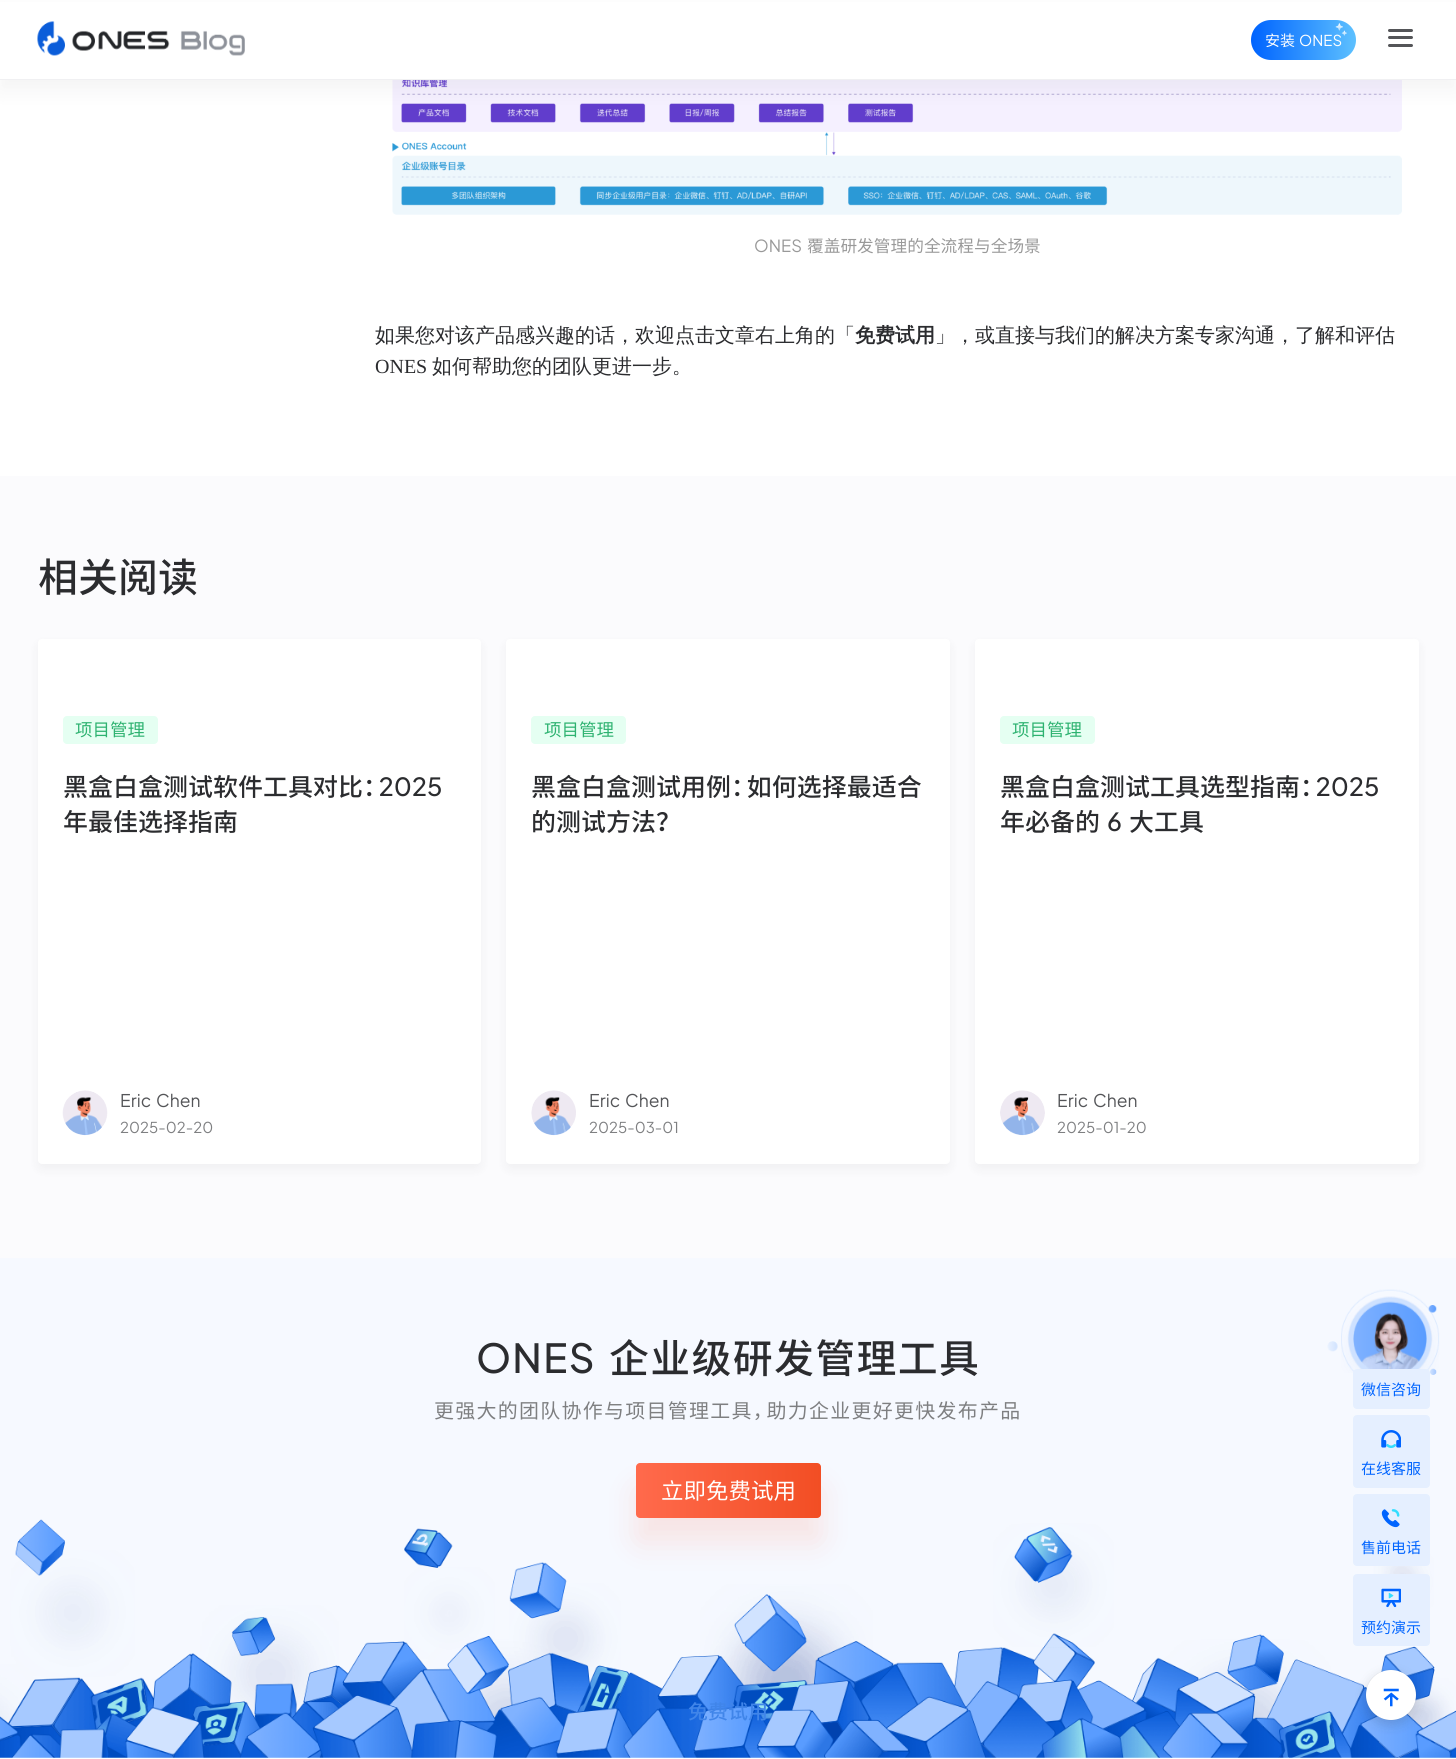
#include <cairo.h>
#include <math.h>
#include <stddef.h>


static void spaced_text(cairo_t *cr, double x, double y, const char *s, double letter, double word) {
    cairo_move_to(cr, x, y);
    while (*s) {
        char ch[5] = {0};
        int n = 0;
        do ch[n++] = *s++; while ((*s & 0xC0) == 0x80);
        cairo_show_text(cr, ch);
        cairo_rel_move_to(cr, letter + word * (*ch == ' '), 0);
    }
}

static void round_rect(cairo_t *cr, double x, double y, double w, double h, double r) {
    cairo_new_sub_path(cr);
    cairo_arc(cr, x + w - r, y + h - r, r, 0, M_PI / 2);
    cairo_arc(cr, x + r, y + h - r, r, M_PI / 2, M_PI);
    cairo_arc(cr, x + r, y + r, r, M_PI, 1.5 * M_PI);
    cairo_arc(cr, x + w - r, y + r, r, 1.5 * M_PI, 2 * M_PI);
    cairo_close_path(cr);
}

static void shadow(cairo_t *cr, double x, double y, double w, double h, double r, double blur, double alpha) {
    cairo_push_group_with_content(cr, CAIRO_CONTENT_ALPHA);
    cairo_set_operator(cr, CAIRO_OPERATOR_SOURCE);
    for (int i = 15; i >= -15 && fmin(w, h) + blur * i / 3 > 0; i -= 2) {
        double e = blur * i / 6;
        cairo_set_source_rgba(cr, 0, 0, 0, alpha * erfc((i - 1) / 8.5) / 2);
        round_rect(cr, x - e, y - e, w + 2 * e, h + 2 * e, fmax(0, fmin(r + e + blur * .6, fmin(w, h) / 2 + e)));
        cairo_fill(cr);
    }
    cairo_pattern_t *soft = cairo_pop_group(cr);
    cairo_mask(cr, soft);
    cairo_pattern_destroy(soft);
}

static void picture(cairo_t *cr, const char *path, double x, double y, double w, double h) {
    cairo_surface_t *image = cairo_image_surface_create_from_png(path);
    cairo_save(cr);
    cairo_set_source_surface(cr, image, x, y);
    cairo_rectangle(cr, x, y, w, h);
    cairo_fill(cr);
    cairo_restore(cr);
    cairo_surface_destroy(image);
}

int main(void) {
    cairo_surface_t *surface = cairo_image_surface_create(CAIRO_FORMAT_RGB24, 1456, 1759);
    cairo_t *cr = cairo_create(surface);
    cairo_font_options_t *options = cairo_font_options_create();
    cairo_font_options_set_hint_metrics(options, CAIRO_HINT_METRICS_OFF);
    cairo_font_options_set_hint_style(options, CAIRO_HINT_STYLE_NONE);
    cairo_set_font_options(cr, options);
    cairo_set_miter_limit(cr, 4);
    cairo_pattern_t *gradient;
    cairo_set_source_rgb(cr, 1, 1, 1);
    cairo_paint(cr);
    picture(cr, "img3.png", 392, 80, 1010, 135);
    cairo_set_source_rgb(cr, 0.086, 0.09, 0.102);
    shadow(cr, 0, 10, 1456, 80, 0, 10, 0.05);
    cairo_set_source_rgb(cr, 1, 1, 1);
    cairo_rectangle(cr, 0, 2, 1456, 77);
    cairo_fill(cr);
    cairo_set_source_rgb(cr, 0.941, 0.941, 0.949);
    cairo_rectangle(cr, 0, 79, 1456, 1);
    cairo_fill(cr);
    gradient = cairo_pattern_create_linear(1391, 40, 1251, 40);
    cairo_pattern_add_color_stop_rgba(gradient, 0, 0.49, 0.878, 1, 1);
    cairo_pattern_add_color_stop_rgba(gradient, 0.99, 0, 0.392, 1, 1);
    cairo_set_source(cr, gradient);
    cairo_pattern_destroy(gradient);
    round_rect(cr, 1251, 20, 105, 40, 20);
    cairo_fill(cr);
    cairo_select_font_face(cr, "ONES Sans", CAIRO_FONT_SLANT_NORMAL, CAIRO_FONT_WEIGHT_NORMAL);
    cairo_set_font_size(cr, 15);
    cairo_set_source_rgb(cr, 1, 1, 1);
    cairo_move_to(cr, 1299, 46);
    cairo_show_text(cr, "ONES");
    picture(cr, "img1.png", 1335, 23, 12, 13);
    cairo_move_to(cr, 1265, 46);
    cairo_show_text(cr, "安装");
    cairo_set_source_rgb(cr, 0.329, 0.333, 0.345);
    round_rect(cr, 1388, 36, 25, 3, 1.5);
    cairo_fill(cr);
    round_rect(cr, 1388, 29, 25, 3, 1.5);
    cairo_fill(cr);
    round_rect(cr, 1388, 44, 25, 3, 1.5);
    cairo_fill(cr);
    picture(cr, "img2.png", 37, 21, 208, 35);
    cairo_set_source_rgb(cr, 0.961, 0.976, 1);
    cairo_rectangle(cr, 0, 1258, 1456, 500);
    cairo_fill(cr);
    picture(cr, "img7.png", 0, 1519, 1456, 239);
    cairo_select_font_face(cr, "ONES Sans Medium", CAIRO_FONT_SLANT_NORMAL, CAIRO_FONT_WEIGHT_NORMAL);
    cairo_set_font_size(cr, 20);
    cairo_set_source_rgb(cr, 0.251, 0.522, 0.914);
    cairo_move_to(cr, 688, 1719);
    cairo_show_text(cr, "免费试用");
    cairo_select_font_face(cr, "ONES Sans", CAIRO_FONT_SLANT_NORMAL, CAIRO_FONT_WEIGHT_NORMAL);
    cairo_set_font_size(cr, 16.7);
    cairo_set_source_rgb(cr, 0.6, 0.6, 0.6);
    cairo_move_to(cr, 754, 252);
    cairo_show_text(cr, "ONES");
    cairo_move_to(cr, 807, 252);
    cairo_show_text(cr, "覆盖研发管理的全流程与全场景");
    cairo_select_font_face(cr, "WenQuanYi Zen Hei Medium", CAIRO_FONT_SLANT_NORMAL, CAIRO_FONT_WEIGHT_NORMAL);
    cairo_set_font_size(cr, 20);
    cairo_set_source_rgb(cr, 0.169, 0.173, 0.184);
    cairo_move_to(cr, 375, 342);
    cairo_show_text(cr, "如果您对该产品感兴趣的话，欢迎点击文章右上角的「");
    cairo_select_font_face(cr, "WenQuanYi Zen Hei", CAIRO_FONT_SLANT_NORMAL, CAIRO_FONT_WEIGHT_BOLD);
    cairo_move_to(cr, 855, 342);
    cairo_show_text(cr, "免费试用");
    cairo_select_font_face(cr, "WenQuanYi Zen Hei Medium", CAIRO_FONT_SLANT_NORMAL, CAIRO_FONT_WEIGHT_NORMAL);
    cairo_move_to(cr, 935, 342);
    cairo_show_text(cr, "」，或直接与我们的解决方案专家沟通，了解和评估");
    cairo_select_font_face(cr, "Liberation Serif", CAIRO_FONT_SLANT_NORMAL, CAIRO_FONT_WEIGHT_NORMAL);
    cairo_move_to(cr, 375, 373);
    cairo_show_text(cr, "ONES");
    cairo_select_font_face(cr, "WenQuanYi Zen Hei Medium", CAIRO_FONT_SLANT_NORMAL, CAIRO_FONT_WEIGHT_NORMAL);
    cairo_move_to(cr, 432, 373);
    cairo_show_text(cr, "如何帮助您的团队更进一步。");
    cairo_set_source_rgb(cr, 0.984, 0.984, 0.992);
    cairo_rectangle(cr, 0, 476, 1456, 782);
    cairo_fill(cr);
    cairo_select_font_face(cr, "ONES Sans Medium", CAIRO_FONT_SLANT_NORMAL, CAIRO_FONT_WEIGHT_NORMAL);
    cairo_set_font_size(cr, 40);
    cairo_set_source_rgb(cr, 0.169, 0.173, 0.184);
    cairo_move_to(cr, 38, 592);
    cairo_show_text(cr, "相关阅读");
    cairo_set_source_rgb(cr, 0.086, 0.09, 0.102);
    shadow(cr, 38, 644, 443, 525, 4, 5, 0.05);
    cairo_set_source_rgb(cr, 1, 1, 1);
    round_rect(cr, 38, 639, 443, 525, 4);
    cairo_fill(cr);
    cairo_set_source_rgb(cr, 0.898, 1, 0.949);
    round_rect(cr, 63, 716, 95, 28, 4);
    cairo_fill(cr);
    cairo_select_font_face(cr, "ONES Sans", CAIRO_FONT_SLANT_NORMAL, CAIRO_FONT_WEIGHT_NORMAL);
    cairo_set_font_size(cr, 17.5);
    cairo_set_source_rgb(cr, 0.176, 0.698, 0.439);
    cairo_move_to(cr, 75, 736);
    cairo_show_text(cr, "项目管理");
    cairo_select_font_face(cr, "ONES Sans Medium", CAIRO_FONT_SLANT_NORMAL, CAIRO_FONT_WEIGHT_NORMAL);
    cairo_set_font_size(cr, 25);
    cairo_set_source_rgb(cr, 0.169, 0.173, 0.184);
    cairo_move_to(cr, 63, 796);
    cairo_show_text(cr, "黑盒白盒测试软件工具对比：2025");
    cairo_move_to(cr, 63, 831);
    cairo_show_text(cr, "年最佳选择指南");
    picture(cr, "img4.png", 62, 1090, 46, 46);
    cairo_select_font_face(cr, "ONES Sans", CAIRO_FONT_SLANT_NORMAL, CAIRO_FONT_WEIGHT_NORMAL);
    cairo_set_font_size(cr, 17.5);
    cairo_set_source_rgb(cr, 0.329, 0.333, 0.345);
    cairo_move_to(cr, 120, 1107);
    cairo_show_text(cr, "Eric");
    cairo_move_to(cr, 156, 1107);
    cairo_show_text(cr, "Chen");
    cairo_set_font_size(cr, 15);
    cairo_set_source_rgb(cr, 0.494, 0.498, 0.506);
    cairo_move_to(cr, 120, 1133);
    cairo_show_text(cr, "2025-02-20");
    cairo_set_source_rgb(cr, 0.086, 0.09, 0.102);
    shadow(cr, 506, 644, 444, 525, 4, 5, 0.05);
    cairo_set_source_rgb(cr, 1, 1, 1);
    round_rect(cr, 506, 639, 444, 525, 4);
    cairo_fill(cr);
    cairo_set_source_rgb(cr, 0.898, 1, 0.949);
    round_rect(cr, 531, 716, 95, 28, 4);
    cairo_fill(cr);
    cairo_set_font_size(cr, 17.5);
    cairo_set_source_rgb(cr, 0.176, 0.698, 0.439);
    cairo_move_to(cr, 544, 736);
    cairo_show_text(cr, "项目管理");
    cairo_select_font_face(cr, "ONES Sans Medium", CAIRO_FONT_SLANT_NORMAL, CAIRO_FONT_WEIGHT_NORMAL);
    cairo_set_font_size(cr, 25);
    cairo_set_source_rgb(cr, 0.169, 0.173, 0.184);
    cairo_move_to(cr, 531, 796);
    cairo_show_text(cr, "黑盒白盒测试用例：如何选择最适合");
    cairo_move_to(cr, 531, 831);
    cairo_show_text(cr, "的测试方法？");
    picture(cr, "img5.png", 531, 1090, 45, 46);
    cairo_select_font_face(cr, "ONES Sans", CAIRO_FONT_SLANT_NORMAL, CAIRO_FONT_WEIGHT_NORMAL);
    cairo_set_font_size(cr, 17.5);
    cairo_set_source_rgb(cr, 0.329, 0.333, 0.345);
    cairo_move_to(cr, 589, 1107);
    cairo_show_text(cr, "Eric");
    cairo_move_to(cr, 625, 1107);
    cairo_show_text(cr, "Chen");
    cairo_set_font_size(cr, 15);
    cairo_set_source_rgb(cr, 0.494, 0.498, 0.506);
    cairo_move_to(cr, 589, 1133);
    cairo_show_text(cr, "2025-03-01");
    cairo_set_source_rgb(cr, 0.086, 0.09, 0.102);
    shadow(cr, 975, 644, 444, 525, 4, 5, 0.05);
    cairo_set_source_rgb(cr, 1, 1, 1);
    round_rect(cr, 975, 639, 444, 525, 4);
    cairo_fill(cr);
    cairo_set_source_rgb(cr, 0.898, 1, 0.949);
    round_rect(cr, 1000, 716, 95, 28, 4);
    cairo_fill(cr);
    cairo_set_font_size(cr, 17.5);
    cairo_set_source_rgb(cr, 0.176, 0.698, 0.439);
    cairo_move_to(cr, 1012, 736);
    cairo_show_text(cr, "项目管理");
    cairo_select_font_face(cr, "ONES Sans Medium", CAIRO_FONT_SLANT_NORMAL, CAIRO_FONT_WEIGHT_NORMAL);
    cairo_set_font_size(cr, 25);
    cairo_set_source_rgb(cr, 0.169, 0.173, 0.184);
    cairo_move_to(cr, 1000, 796);
    cairo_show_text(cr, "黑盒白盒测试工具选型指南：2025");
    cairo_move_to(cr, 1000, 831);
    cairo_show_text(cr, "年必备的");
    cairo_move_to(cr, 1107, 831);
    cairo_show_text(cr, "6");
    cairo_move_to(cr, 1129, 831);
    cairo_show_text(cr, "大工具");
    picture(cr, "img6.png", 1000, 1090, 45, 46);
    cairo_select_font_face(cr, "ONES Sans", CAIRO_FONT_SLANT_NORMAL, CAIRO_FONT_WEIGHT_NORMAL);
    cairo_set_font_size(cr, 17.5);
    cairo_set_source_rgb(cr, 0.329, 0.333, 0.345);
    cairo_move_to(cr, 1057, 1107);
    cairo_show_text(cr, "Eric");
    cairo_move_to(cr, 1093, 1107);
    cairo_show_text(cr, "Chen");
    cairo_set_font_size(cr, 15);
    cairo_set_source_rgb(cr, 0.494, 0.498, 0.506);
    cairo_move_to(cr, 1057, 1133);
    cairo_show_text(cr, "2025-01-20");
    cairo_select_font_face(cr, "ONES Sans Medium", CAIRO_FONT_SLANT_NORMAL, CAIRO_FONT_WEIGHT_NORMAL);
    cairo_set_font_size(cr, 40);
    cairo_set_source_rgb(cr, 0.169, 0.173, 0.184);
    spaced_text(cr, 476, 1373, "ONES", 1.25, 0);
    spaced_text(cr, 609, 1373, "企业级研发管理工具", 1.25, 0);
    cairo_select_font_face(cr, "ONES Sans", CAIRO_FONT_SLANT_NORMAL, CAIRO_FONT_WEIGHT_NORMAL);
    cairo_set_font_size(cr, 20);
    cairo_set_source_rgb(cr, 0.494, 0.498, 0.506);
    spaced_text(cr, 434, 1418, "更强大的团队协作与项目管理工具，助力企业更好更快发布产品", 1.25, 0);
    cairo_set_source_rgb(cr, 1, 0.412, 0.29);
    shadow(cr, 636, 1488, 185, 55, 4, 15, 0.15);
    gradient = cairo_pattern_create_linear(636, 1490, 821, 1490);
    cairo_pattern_add_color_stop_rgba(gradient, 0, 1, 0.416, 0.298, 1);
    cairo_pattern_add_color_stop_rgba(gradient, 1, 0.949, 0.306, 0.141, 1);
    cairo_set_source(cr, gradient);
    cairo_pattern_destroy(gradient);
    round_rect(cr, 636, 1463, 185, 55, 4);
    cairo_fill(cr);
    cairo_set_font_size(cr, 22.5);
    cairo_set_source_rgb(cr, 1, 1, 1);
    cairo_move_to(cr, 661, 1499);
    cairo_show_text(cr, "立即免费试用");
    picture(cr, "img8.png", 1341, 1289, 99, 84);
    picture(cr, "img9.png", 1428, 1305, 9, 8);
    picture(cr, "img10.png", 1327, 1341, 11, 11);
    picture(cr, "img11.png", 1430, 1368, 7, 7);
    cairo_set_source_rgb(cr, 0.898, 0.937, 1);
    round_rect(cr, 1353.5, 1369.5, 76, 39, 3.5);
    cairo_fill_preserve(cr);
    cairo_set_line_width(cr, 1);
    cairo_stroke(cr);
    cairo_set_font_size(cr, 15);
    cairo_set_source_rgb(cr, 0, 0.392, 1);
    cairo_move_to(cr, 1361, 1395);
    cairo_show_text(cr, "微信咨询");
    cairo_set_source_rgb(cr, 0.898, 0.937, 1);
    round_rect(cr, 1353.5, 1415.5, 76, 72, 3.5);
    cairo_fill_preserve(cr);
    cairo_stroke(cr);
    picture(cr, "img12.png", 1381, 1430, 20, 18);
    cairo_set_source_rgb(cr, 0, 0.392, 1);
    cairo_move_to(cr, 1361, 1474);
    cairo_show_text(cr, "在线客服");
    cairo_set_source_rgb(cr, 0.898, 0.937, 1);
    round_rect(cr, 1353.5, 1494.5, 76, 71, 3.5);
    cairo_fill_preserve(cr);
    cairo_stroke(cr);
    picture(cr, "img13.png", 1381, 1509, 19, 19);
    cairo_set_source_rgb(cr, 0, 0.392, 1);
    cairo_move_to(cr, 1361, 1553);
    cairo_show_text(cr, "售前电话");
    cairo_set_source_rgb(cr, 0.898, 0.937, 1);
    round_rect(cr, 1353.5, 1574.5, 76, 71, 3.5);
    cairo_fill_preserve(cr);
    cairo_stroke(cr);
    picture(cr, "img14.png", 1381, 1588, 20, 20);
    cairo_set_source_rgb(cr, 0, 0.392, 1);
    cairo_move_to(cr, 1361, 1633);
    cairo_show_text(cr, "预约演示");
    cairo_set_source_rgb(cr, 0, 0, 0);
    shadow(cr, 1366, 1670, 50, 50, 25, 0.5, 0.1);
    cairo_set_source_rgb(cr, 0.188, 0.188, 0.188);
    shadow(cr, 1366, 1675, 50, 50, 25, 5, 0.1);
    shadow(cr, 1366, 1674, 50, 50, 25, 7.5, 0.08);
    cairo_set_source_rgb(cr, 1, 1, 1);
    cairo_arc(cr, 1391, 1695, 25, 0, 2 * M_PI);
    cairo_fill(cr);
    picture(cr, "img15.png", 1383, 1688, 16, 19);
    cairo_surface_write_to_png(surface, "page.png");
    cairo_font_options_destroy(options);
    cairo_destroy(cr);
    cairo_surface_destroy(surface);
    return 0;
}
